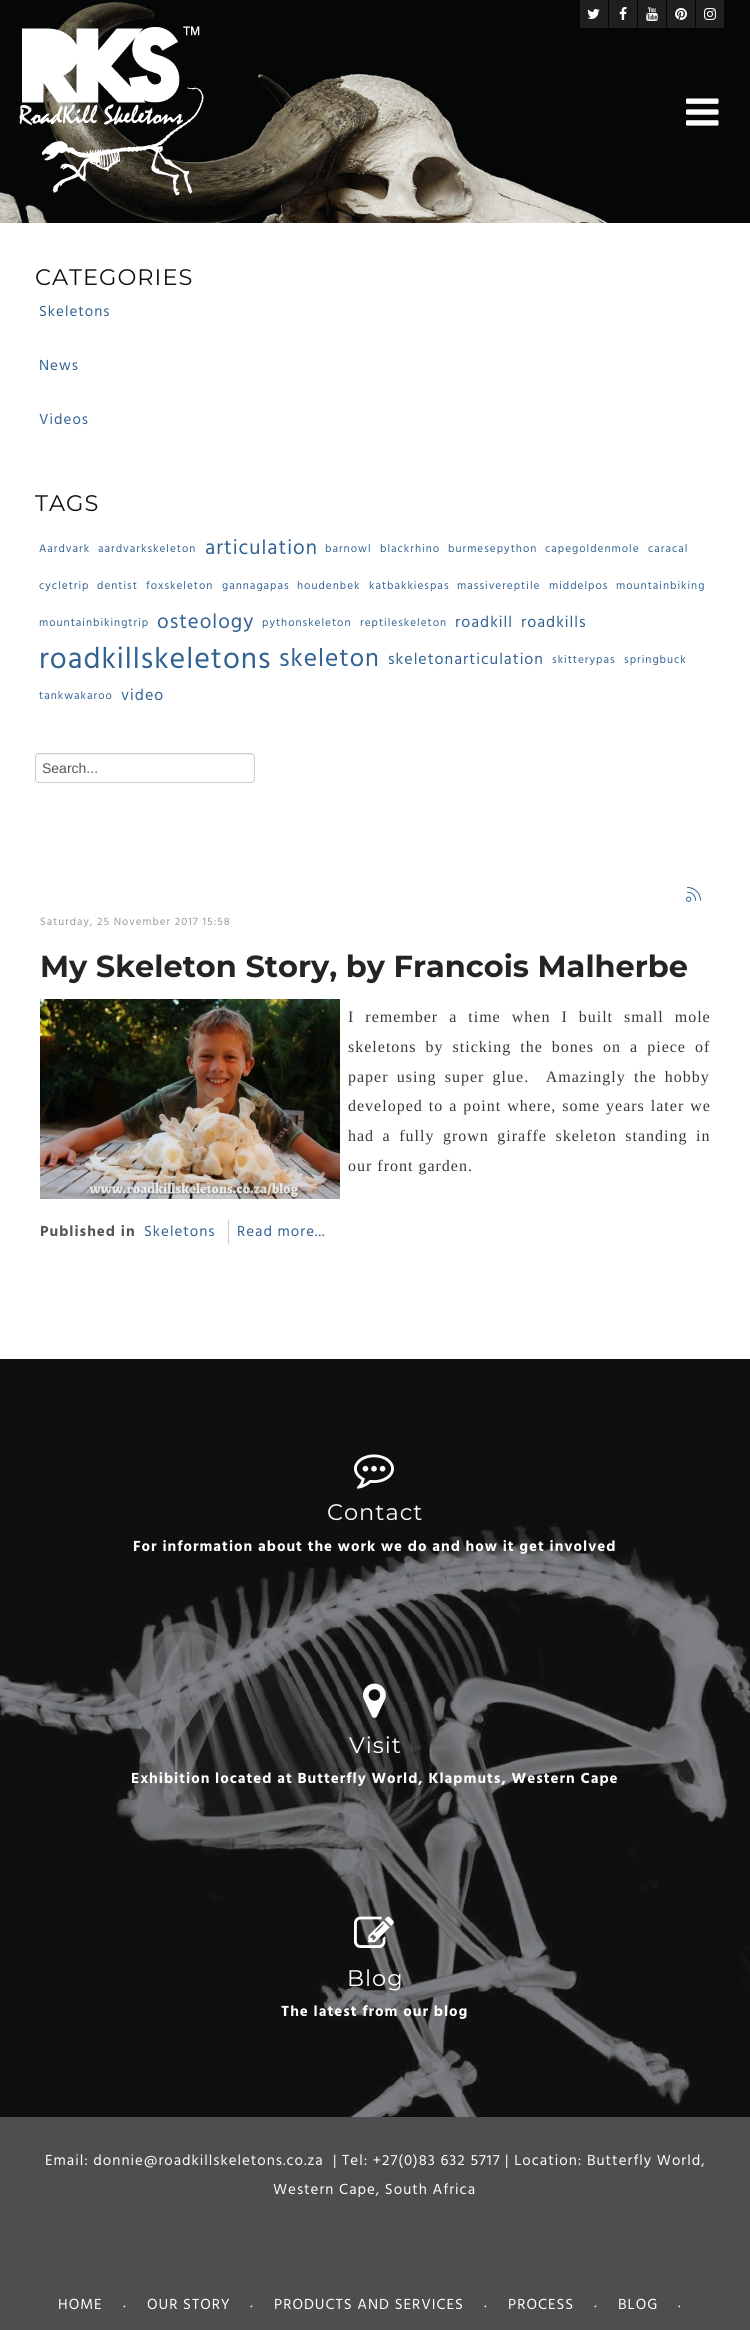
#include <cairo.h>
#include <math.h>
#include <stddef.h>


static void spaced_text(cairo_t *cr, double x, double y, const char *s, double letter, double word) {
    cairo_move_to(cr, x, y);
    while (*s) {
        char ch[5] = {0};
        int n = 0;
        do ch[n++] = *s++; while ((*s & 0xC0) == 0x80);
        cairo_show_text(cr, ch);
        cairo_rel_move_to(cr, letter + word * (*ch == ' '), 0);
    }
}

static void round_rect(cairo_t *cr, double x, double y, double w, double h, double r) {
    cairo_new_sub_path(cr);
    cairo_arc(cr, x + w - r, y + h - r, r, 0, M_PI / 2);
    cairo_arc(cr, x + r, y + h - r, r, M_PI / 2, M_PI);
    cairo_arc(cr, x + r, y + r, r, M_PI, 1.5 * M_PI);
    cairo_arc(cr, x + w - r, y + r, r, 1.5 * M_PI, 2 * M_PI);
    cairo_close_path(cr);
}

static void picture(cairo_t *cr, const char *path, double x, double y, double w, double h) {
    cairo_surface_t *image = cairo_image_surface_create_from_png(path);
    cairo_save(cr);
    cairo_set_source_surface(cr, image, x, y);
    cairo_rectangle(cr, x, y, w, h);
    cairo_fill(cr);
    cairo_restore(cr);
    cairo_surface_destroy(image);
}

int main(void) {
    cairo_surface_t *surface = cairo_image_surface_create(CAIRO_FORMAT_RGB24, 750, 2330);
    cairo_t *cr = cairo_create(surface);
    cairo_font_options_t *options = cairo_font_options_create();
    cairo_font_options_set_hint_metrics(options, CAIRO_HINT_METRICS_OFF);
    cairo_font_options_set_hint_style(options, CAIRO_HINT_STYLE_NONE);
    cairo_set_font_options(cr, options);
    cairo_set_miter_limit(cr, 4);
    cairo_set_source_rgb(cr, 1, 1, 1);
    cairo_paint(cr);
    picture(cr, "img1.png", 0, 0, 750, 223);
    cairo_set_source_rgb(cr, 0.118, 0.125, 0.122);
    cairo_rectangle(cr, 580, 0, 28, 28);
    cairo_fill(cr);
    picture(cr, "img2.png", 587, 9, 13, 10);
    cairo_rectangle(cr, 609, 0, 28, 28);
    cairo_fill(cr);
    picture(cr, "img3.png", 619, 7, 8, 13);
    cairo_rectangle(cr, 638, 0, 28, 28);
    cairo_fill(cr);
    picture(cr, "img4.png", 646, 7, 12, 14);
    cairo_rectangle(cr, 667, 0, 28, 28);
    cairo_fill(cr);
    picture(cr, "img5.png", 675, 8, 12, 12);
    cairo_rectangle(cr, 696, 0, 28, 28);
    cairo_fill(cr);
    picture(cr, "img6.png", 704, 8, 12, 12);
    picture(cr, "img7.png", 19, 26, 185, 170);
    picture(cr, "img8.png", 686, 98, 33, 28);
    cairo_select_font_face(cr, "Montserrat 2 Thin", CAIRO_FONT_SLANT_NORMAL, CAIRO_FONT_WEIGHT_NORMAL);
    cairo_set_font_size(cr, 22.5);
    cairo_set_source_rgb(cr, 0.067, 0.067, 0.067);
    spaced_text(cr, 35, 285, "CATEGORIES", 1, 0);
    cairo_select_font_face(cr, "Hind", CAIRO_FONT_SLANT_NORMAL, CAIRO_FONT_WEIGHT_NORMAL);
    cairo_set_font_size(cr, 15);
    cairo_set_source_rgb(cr, 0.192, 0.384, 0.58);
    spaced_text(cr, 39, 316, "Skeletons", 1, 0);
    spaced_text(cr, 39, 370, "News", 1, 0);
    spaced_text(cr, 39, 424, "Videos", 1, 0);
    cairo_select_font_face(cr, "Montserrat 2 Thin", CAIRO_FONT_SLANT_NORMAL, CAIRO_FONT_WEIGHT_NORMAL);
    cairo_set_font_size(cr, 22.5);
    cairo_set_source_rgb(cr, 0.067, 0.067, 0.067);
    spaced_text(cr, 35, 511, "TAGS", 1, 0);
    cairo_select_font_face(cr, "Hind", CAIRO_FONT_SLANT_NORMAL, CAIRO_FONT_WEIGHT_NORMAL);
    cairo_set_font_size(cr, 11.25);
    cairo_set_source_rgb(cr, 0.192, 0.384, 0.58);
    spaced_text(cr, 39, 552, "Aardvark", 1, 0);
    spaced_text(cr, 98, 552, "aardvarkskeleton", 1, 0);
    cairo_set_font_size(cr, 20.75);
    spaced_text(cr, 205, 554, "articulation", 1, 0);
    cairo_set_font_size(cr, 11.25);
    spaced_text(cr, 325, 552, "barnowl", 1, 0);
    spaced_text(cr, 380, 552, "blackrhino", 1, 0);
    spaced_text(cr, 448, 552, "burmesepython", 1, 0);
    spaced_text(cr, 545, 552, "capegoldenmole", 1, 0);
    spaced_text(cr, 648, 552, "caracal", 1, 0);
    spaced_text(cr, 39, 589, "cycletrip", 1, 0);
    spaced_text(cr, 97, 589, "dentist", 1, 0);
    spaced_text(cr, 146, 589, "foxskeleton", 1, 0);
    spaced_text(cr, 222, 589, "gannagapas", 1, 0);
    spaced_text(cr, 297, 589, "houdenbek", 1, 0);
    spaced_text(cr, 369, 589, "katbakkiespas", 1, 0);
    spaced_text(cr, 457, 589, "massivereptile", 1, 0);
    spaced_text(cr, 549, 589, "middelpos", 1, 0);
    spaced_text(cr, 616, 589, "mountainbiking", 1, 0);
    spaced_text(cr, 39, 626, "mountainbikingtrip", 1, 0);
    cairo_set_font_size(cr, 20.75);
    spaced_text(cr, 157, 628, "osteology", 1, 0);
    cairo_set_font_size(cr, 11.25);
    spaced_text(cr, 262, 626, "pythonskeleton", 1, 0);
    spaced_text(cr, 360, 626, "reptileskeleton", 1, 0);
    cairo_set_font_size(cr, 16);
    spaced_text(cr, 455, 627, "roadkill", 1, 0);
    spaced_text(cr, 521, 627, "roadkills", 1, 0);
    cairo_set_font_size(cr, 30);
    spaced_text(cr, 39, 668, "roadkillskeletons", 1, 0);
    cairo_set_font_size(cr, 25.5);
    spaced_text(cr, 279, 666, "skeleton", 1, 0);
    cairo_set_font_size(cr, 16);
    spaced_text(cr, 388, 664, "skeletonarticulation", 1, 0);
    cairo_set_font_size(cr, 11.25);
    spaced_text(cr, 552, 663, "skitterypas", 1, 0);
    spaced_text(cr, 624, 663, "springbuck", 1, 0);
    spaced_text(cr, 39, 699, "tankwakaroo", 1, 0);
    cairo_set_font_size(cr, 16);
    spaced_text(cr, 121, 700, "video", 1, 0);
    cairo_set_source_rgb(cr, 0.925, 0.925, 0.925);
    cairo_new_path(cr);
    cairo_move_to(cr, 39, 755);
    cairo_line_to(cr, 251, 755);
    cairo_curve_to(cr, 253, 755, 254, 756, 254, 758);
    cairo_line_to(cr, 254, 757);
    cairo_curve_to(cr, 254, 755, 253, 754, 251, 754);
    cairo_line_to(cr, 39, 754);
    cairo_curve_to(cr, 37, 754, 36, 755, 36, 757);
    cairo_line_to(cr, 36, 758);
    cairo_curve_to(cr, 36, 756, 37, 755, 39, 755);
    cairo_close_path(cr);
    cairo_fill(cr);
    round_rect(cr, 35.5, 753.5, 219, 29, 3.5);
    cairo_set_source_rgb(cr, 0.8, 0.8, 0.8);
    cairo_set_line_width(cr, 1);
    cairo_stroke(cr);
    cairo_select_font_face(cr, "Liberation Sans", CAIRO_FONT_SLANT_NORMAL, CAIRO_FONT_WEIGHT_NORMAL);
    cairo_set_font_size(cr, 14);
    cairo_set_source_rgb(cr, 0.333, 0.333, 0.333);
    cairo_move_to(cr, 42, 773);
    cairo_show_text(cr, "Search...");
    picture(cr, "img9.png", 686, 887, 15, 15);
    cairo_select_font_face(cr, "Hind", CAIRO_FONT_SLANT_NORMAL, CAIRO_FONT_WEIGHT_NORMAL);
    cairo_set_font_size(cr, 11);
    cairo_set_source_rgb(cr, 0.6, 0.6, 0.6);
    spaced_text(cr, 40, 925, "Saturday, 25 November 2017 15:58", 1, 0);
    cairo_select_font_face(cr, "Montserrat Thin", CAIRO_FONT_SLANT_NORMAL, CAIRO_FONT_WEIGHT_NORMAL);
    cairo_set_font_size(cr, 30.4);
    cairo_set_source_rgb(cr, 0.145, 0.141, 0.133);
    cairo_move_to(cr, 40, 977);
    cairo_show_text(cr, "My Skeleton Story, by Francois Malherbe");
    picture(cr, "img10.png", 40, 999, 300, 200);
    cairo_select_font_face(cr, "Liberation Serif", CAIRO_FONT_SLANT_NORMAL, CAIRO_FONT_WEIGHT_NORMAL);
    cairo_set_font_size(cr, 16);
    cairo_set_source_rgb(cr, 0.22, 0.22, 0.22);
    spaced_text(cr, 348, 1022, "I remember a time when I built small mole", 1, 6);
    spaced_text(cr, 348, 1052, "skeletons by sticking the bones on a piece of", 1, 4);
    spaced_text(cr, 348, 1082, "paper using super glue.  Amazingly the hobby", 1, 3.25);
    spaced_text(cr, 348, 1111, "developed to a point where, some years later we", 1, 1);
    spaced_text(cr, 348, 1141, "had a fully grown giraffe skeleton standing in", 1, 3.5);
    spaced_text(cr, 348, 1171, "our front garden.", 1, 0);
    cairo_select_font_face(cr, "Hind", CAIRO_FONT_SLANT_NORMAL, CAIRO_FONT_WEIGHT_BOLD);
    cairo_set_font_size(cr, 15);
    cairo_set_source_rgb(cr, 0.333, 0.333, 0.333);
    spaced_text(cr, 40, 1236, "Published in", 1, 0);
    cairo_select_font_face(cr, "Hind", CAIRO_FONT_SLANT_NORMAL, CAIRO_FONT_WEIGHT_NORMAL);
    cairo_set_source_rgb(cr, 0.192, 0.384, 0.58);
    spaced_text(cr, 144, 1236, "Skeletons", 1, 0);
    cairo_set_source_rgb(cr, 0.8, 0.8, 0.8);
    cairo_rectangle(cr, 228, 1220, 1, 24);
    cairo_fill(cr);
    cairo_set_source_rgb(cr, 0.192, 0.384, 0.58);
    spaced_text(cr, 237, 1236, "Read more...", 1, 0);
    picture(cr, "img11.png", 0, 1359, 750, 758);
    picture(cr, "img12.png", 354, 1454, 40, 35);
    cairo_select_font_face(cr, "Montserrat 2 Thin", CAIRO_FONT_SLANT_NORMAL, CAIRO_FONT_WEIGHT_NORMAL);
    cairo_set_font_size(cr, 22.5);
    cairo_set_source_rgb(cr, 1, 1, 1);
    spaced_text(cr, 327, 1520, "Contact", 1, 0);
    cairo_select_font_face(cr, "Hind", CAIRO_FONT_SLANT_NORMAL, CAIRO_FONT_WEIGHT_BOLD);
    cairo_set_font_size(cr, 15);
    spaced_text(cr, 133, 1551, "For information about the work we do and how it get involved", 1, 0);
    picture(cr, "img13.png", 363, 1683, 23, 35);
    cairo_select_font_face(cr, "Montserrat 2 Thin", CAIRO_FONT_SLANT_NORMAL, CAIRO_FONT_WEIGHT_NORMAL);
    cairo_set_font_size(cr, 22.5);
    spaced_text(cr, 349, 1753, "Visit", 1, 0);
    cairo_select_font_face(cr, "Hind", CAIRO_FONT_SLANT_NORMAL, CAIRO_FONT_WEIGHT_BOLD);
    cairo_set_font_size(cr, 15);
    spaced_text(cr, 131, 1783, "Exhibition located at Butterfly World, Klapmuts, Western Cape", 1, 0);
    picture(cr, "img14.png", 354, 1916, 40, 32);
    cairo_select_font_face(cr, "Montserrat 2 Thin", CAIRO_FONT_SLANT_NORMAL, CAIRO_FONT_WEIGHT_NORMAL);
    cairo_set_font_size(cr, 22.5);
    spaced_text(cr, 347, 1986, "Blog", 1, 0);
    cairo_select_font_face(cr, "Hind", CAIRO_FONT_SLANT_NORMAL, CAIRO_FONT_WEIGHT_BOLD);
    cairo_set_font_size(cr, 15);
    spaced_text(cr, 281, 2016, "The latest from our blog", 1, 0);
    cairo_set_source_rgb(cr, 0.298, 0.306, 0.31);
    cairo_rectangle(cr, 0, 2117, 750, 213);
    cairo_fill(cr);
    cairo_select_font_face(cr, "Hind", CAIRO_FONT_SLANT_NORMAL, CAIRO_FONT_WEIGHT_NORMAL);
    cairo_set_source_rgb(cr, 1, 1, 1);
    spaced_text(cr, 45, 2165, "Email: donnie@roadkillskeletons.co.za", 1, 0);
    spaced_text(cr, 333, 2165, "| Tel: +27(0)83 632 5717 | Location: Butterfly World,", 1, 0);
    spaced_text(cr, 273, 2194, "Western Cape, South Africa", 1, 0);
    spaced_text(cr, 58, 2309, "HOME", 1, 0);
    cairo_select_font_face(cr, "Hind", CAIRO_FONT_SLANT_NORMAL, CAIRO_FONT_WEIGHT_BOLD);
    cairo_set_font_size(cr, 10);
    spaced_text(cr, 123, 2309, "·", 1, 0);
    cairo_select_font_face(cr, "Hind", CAIRO_FONT_SLANT_NORMAL, CAIRO_FONT_WEIGHT_NORMAL);
    cairo_set_font_size(cr, 15);
    spaced_text(cr, 147, 2309, "OUR STORY", 1, 0);
    cairo_select_font_face(cr, "Hind", CAIRO_FONT_SLANT_NORMAL, CAIRO_FONT_WEIGHT_BOLD);
    cairo_set_font_size(cr, 10);
    spaced_text(cr, 250, 2309, "·", 1, 0);
    cairo_select_font_face(cr, "Hind", CAIRO_FONT_SLANT_NORMAL, CAIRO_FONT_WEIGHT_NORMAL);
    cairo_set_font_size(cr, 15);
    spaced_text(cr, 274, 2309, "PRODUCTS AND SERVICES", 1, 0);
    cairo_select_font_face(cr, "Hind", CAIRO_FONT_SLANT_NORMAL, CAIRO_FONT_WEIGHT_BOLD);
    cairo_set_font_size(cr, 10);
    spaced_text(cr, 484, 2309, "·", 1, 0);
    cairo_select_font_face(cr, "Hind", CAIRO_FONT_SLANT_NORMAL, CAIRO_FONT_WEIGHT_NORMAL);
    cairo_set_font_size(cr, 15);
    spaced_text(cr, 508, 2309, "PROCESS", 1, 0);
    cairo_select_font_face(cr, "Hind", CAIRO_FONT_SLANT_NORMAL, CAIRO_FONT_WEIGHT_BOLD);
    cairo_set_font_size(cr, 10);
    spaced_text(cr, 594, 2309, "·", 1, 0);
    cairo_select_font_face(cr, "Hind", CAIRO_FONT_SLANT_NORMAL, CAIRO_FONT_WEIGHT_NORMAL);
    cairo_set_font_size(cr, 15);
    spaced_text(cr, 618, 2309, "BLOG", 1, 0);
    cairo_select_font_face(cr, "Hind", CAIRO_FONT_SLANT_NORMAL, CAIRO_FONT_WEIGHT_BOLD);
    cairo_set_font_size(cr, 10);
    spaced_text(cr, 678, 2309, "·", 1, 0);
    cairo_surface_write_to_png(surface, "page.png");
    cairo_font_options_destroy(options);
    cairo_destroy(cr);
    cairo_surface_destroy(surface);
    return 0;
}
